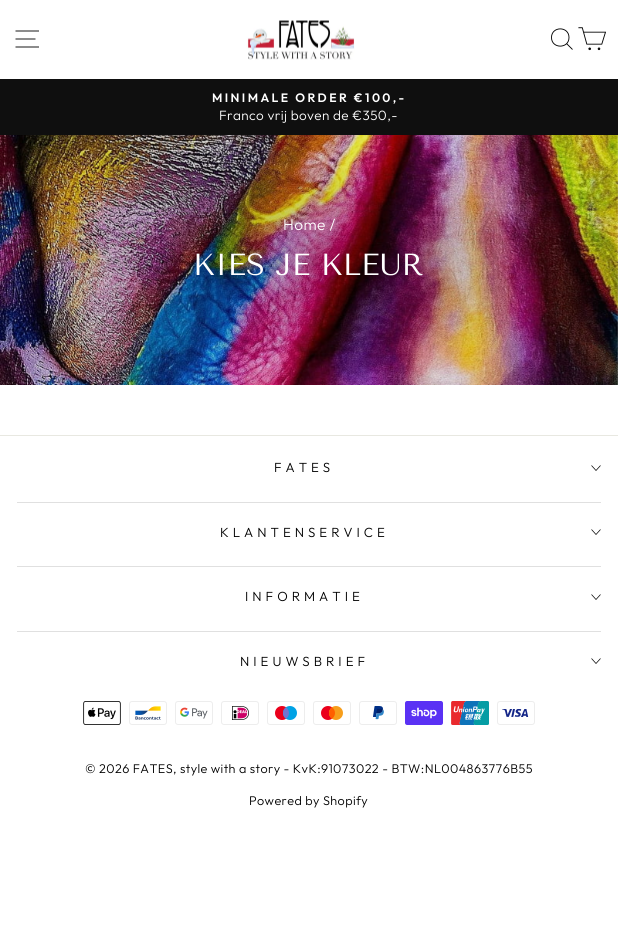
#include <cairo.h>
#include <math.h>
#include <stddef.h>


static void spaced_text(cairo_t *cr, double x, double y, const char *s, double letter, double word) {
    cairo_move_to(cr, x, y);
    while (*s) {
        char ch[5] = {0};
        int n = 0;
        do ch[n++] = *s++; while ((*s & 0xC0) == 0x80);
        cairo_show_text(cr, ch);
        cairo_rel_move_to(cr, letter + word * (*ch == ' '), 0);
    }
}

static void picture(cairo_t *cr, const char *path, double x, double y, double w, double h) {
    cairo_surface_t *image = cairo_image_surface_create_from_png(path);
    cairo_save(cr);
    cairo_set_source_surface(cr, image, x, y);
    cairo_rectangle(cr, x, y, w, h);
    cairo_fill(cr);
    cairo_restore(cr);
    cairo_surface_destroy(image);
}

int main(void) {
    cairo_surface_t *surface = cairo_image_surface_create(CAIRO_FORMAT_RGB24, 618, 948);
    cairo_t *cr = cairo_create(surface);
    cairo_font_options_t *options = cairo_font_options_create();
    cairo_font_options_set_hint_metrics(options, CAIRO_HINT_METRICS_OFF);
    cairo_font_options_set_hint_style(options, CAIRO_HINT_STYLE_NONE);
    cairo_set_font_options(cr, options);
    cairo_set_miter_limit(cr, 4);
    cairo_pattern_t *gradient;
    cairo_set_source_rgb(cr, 1, 1, 1);
    cairo_paint(cr);
    cairo_new_path(cr);
    cairo_move_to(cr, 15.5, 31);
    cairo_line_to(cr, 39, 31);
    cairo_move_to(cr, 15.5, 39);
    cairo_line_to(cr, 35.5, 39);
    cairo_move_to(cr, 15.5, 47);
    cairo_line_to(cr, 39, 47);
    cairo_set_source_rgb(cr, 0, 0, 0);
    cairo_set_line_width(cr, 0.9);
    cairo_stroke(cr);
    picture(cr, "img1.png", 246, 20, 109, 40);
    cairo_new_path(cr);
    cairo_move_to(cr, 569, 37.5);
    cairo_curve_to(cr, 569, 49, 551.5, 49, 551.5, 37.5);
    cairo_curve_to(cr, 551.5, 26, 569, 26, 569, 37.5);
    cairo_close_path(cr);
    cairo_move_to(cr, 572.5, 49.5);
    cairo_line_to(cr, 566.5, 43.5);
    cairo_stroke(cr);
    picture(cr, "img2.png", 578, 27, 28, 24);
    cairo_set_source_rgb(cr, 0.059, 0.059, 0.059);
    cairo_rectangle(cr, 0, 79, 618, 56);
    cairo_fill(cr);
    cairo_select_font_face(cr, "Outfit SemiBold", CAIRO_FONT_SLANT_NORMAL, CAIRO_FONT_WEIGHT_NORMAL);
    cairo_set_font_size(cr, 12.2);
    cairo_set_source_rgb(cr, 1, 1, 1);
    spaced_text(cr, 212, 102, "MINIMALE ORDER €100,-", 2.4, 0);
    cairo_select_font_face(cr, "Outfit Light", CAIRO_FONT_SLANT_NORMAL, CAIRO_FONT_WEIGHT_NORMAL);
    cairo_set_font_size(cr, 13.5);
    spaced_text(cr, 219, 120, "Franco vrij boven de €350,-", 0.4, 0);
    picture(cr, "img3.png", 0, 135, 618, 250);
    gradient = cairo_pattern_create_radial(0, 0, 0, 0, 0, 1);
    cairo_pattern_set_matrix(gradient, &(cairo_matrix_t){1.0 / 447, 0, 0, 1.0 / 171, -1.0 * 309 / 447, -1.0 * 260 / 171});
    cairo_pattern_add_color_stop_rgba(gradient, 0, 0, 0, 0, 0.2);
    cairo_pattern_add_color_stop_rgba(gradient, 0.6, 0, 0, 0, 0);
    cairo_set_source(cr, gradient);
    cairo_pattern_destroy(gradient);
    cairo_rectangle(cr, 70, 168, 467, 184);
    cairo_fill(cr);
    cairo_set_font_size(cr, 15.5);
    cairo_set_source_rgb(cr, 1, 1, 1);
    spaced_text(cr, 283, 230, "Home /", 0.4, 0);
    cairo_select_font_face(cr, "Tenor Sans", CAIRO_FONT_SLANT_NORMAL, CAIRO_FONT_WEIGHT_NORMAL);
    cairo_set_font_size(cr, 30.5);
    cairo_move_to(cr, 193, 275);
    cairo_show_text(cr, "KIES JE KLEUR");
    cairo_set_source_rgb(cr, 0.91, 0.91, 0.882);
    cairo_rectangle(cr, 0, 435, 618, 1);
    cairo_fill(cr);
    cairo_select_font_face(cr, "Outfit Light", CAIRO_FONT_SLANT_NORMAL, CAIRO_FONT_WEIGHT_NORMAL);
    cairo_set_font_size(cr, 13.25);
    cairo_set_source_rgb(cr, 0, 0, 0);
    spaced_text(cr, 274, 472, "FATES", 4, 0);
    cairo_new_path(cr);
    cairo_move_to(cr, 591.5, 465.5);
    cairo_line_to(cr, 596, 470.5);
    cairo_line_to(cr, 600.5, 465.5);
    cairo_set_line_width(cr, 0.7);
    cairo_stroke(cr);
    cairo_set_source_rgb(cr, 0.878, 0.878, 0.878);
    cairo_rectangle(cr, 17, 502, 584, 1);
    cairo_fill(cr);
    cairo_set_source_rgb(cr, 0, 0, 0);
    spaced_text(cr, 220, 537, "KLANTENSERVICE", 4, 0);
    cairo_new_path(cr);
    cairo_move_to(cr, 591.5, 529.5);
    cairo_line_to(cr, 596, 534.5);
    cairo_line_to(cr, 600.5, 529.5);
    cairo_stroke(cr);
    cairo_set_source_rgb(cr, 0.878, 0.878, 0.878);
    cairo_rectangle(cr, 17, 566, 584, 1);
    cairo_fill(cr);
    cairo_set_source_rgb(cr, 0, 0, 0);
    spaced_text(cr, 245, 601, "INFORMATIE", 4, 0);
    cairo_new_path(cr);
    cairo_move_to(cr, 591.5, 594.5);
    cairo_line_to(cr, 596, 599.5);
    cairo_line_to(cr, 600.5, 594.5);
    cairo_stroke(cr);
    cairo_set_source_rgb(cr, 0.878, 0.878, 0.878);
    cairo_rectangle(cr, 17, 631, 584, 1);
    cairo_fill(cr);
    cairo_set_source_rgb(cr, 0, 0, 0);
    spaced_text(cr, 240, 666, "NIEUWSBRIEF", 4, 0);
    cairo_new_path(cr);
    cairo_move_to(cr, 591.5, 658.5);
    cairo_line_to(cr, 596, 663.5);
    cairo_line_to(cr, 600.5, 658.5);
    cairo_stroke(cr);
    picture(cr, "img4.png", 83, 701, 38, 24);
    picture(cr, "img5.png", 129, 701, 38, 24);
    picture(cr, "img6.png", 175, 701, 38, 24);
    picture(cr, "img7.png", 221, 701, 38, 24);
    picture(cr, "img8.png", 267, 701, 38, 24);
    picture(cr, "img9.png", 313, 701, 38, 24);
    picture(cr, "img10.png", 359, 701, 38, 24);
    picture(cr, "img11.png", 405, 701, 38, 24);
    picture(cr, "img12.png", 451, 701, 38, 24);
    picture(cr, "img13.png", 497, 701, 38, 24);
    cairo_set_font_size(cr, 12.6);
    spaced_text(cr, 85, 773, "© 2026 FATES, style with a story - KvK:91073022 - BTW:NL004863776B55", 0.4, 0);
    spaced_text(cr, 249, 805, "Powered by Shopify", 0.4, 0);
    cairo_surface_write_to_png(surface, "page.png");
    cairo_font_options_destroy(options);
    cairo_destroy(cr);
    cairo_surface_destroy(surface);
    return 0;
}
